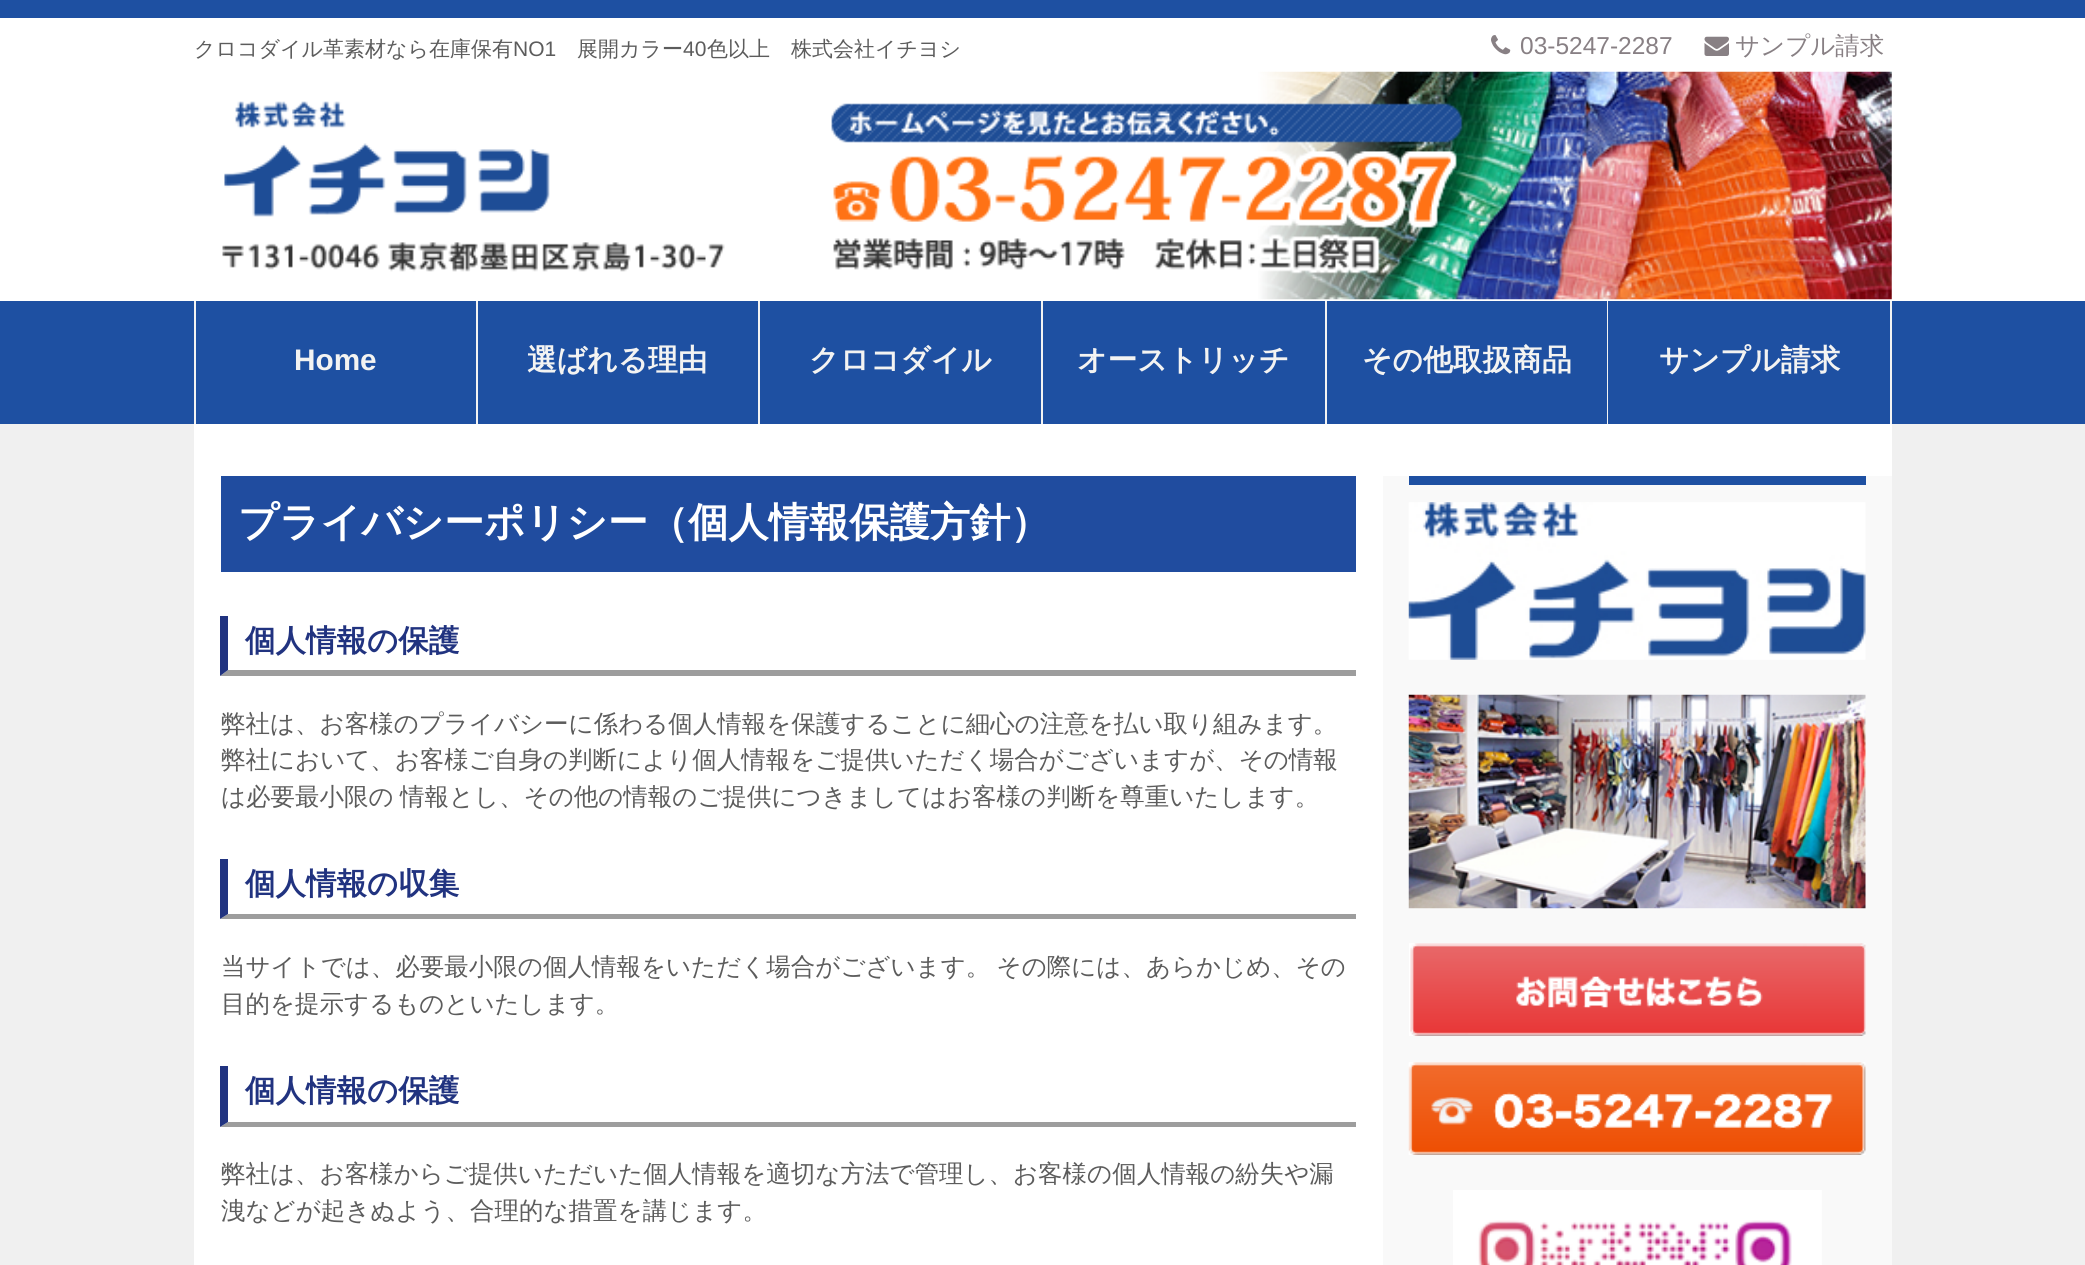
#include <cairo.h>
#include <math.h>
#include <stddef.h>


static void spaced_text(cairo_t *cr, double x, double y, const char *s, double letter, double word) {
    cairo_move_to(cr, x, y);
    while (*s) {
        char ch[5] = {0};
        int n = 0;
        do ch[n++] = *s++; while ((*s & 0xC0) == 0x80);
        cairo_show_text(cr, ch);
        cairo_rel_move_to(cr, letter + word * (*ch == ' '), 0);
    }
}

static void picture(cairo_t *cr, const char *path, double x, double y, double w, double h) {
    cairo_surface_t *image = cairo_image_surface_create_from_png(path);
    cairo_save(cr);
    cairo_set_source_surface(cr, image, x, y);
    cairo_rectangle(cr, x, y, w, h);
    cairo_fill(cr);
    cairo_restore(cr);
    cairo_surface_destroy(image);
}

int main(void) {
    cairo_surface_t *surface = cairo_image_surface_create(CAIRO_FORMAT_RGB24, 2085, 1265);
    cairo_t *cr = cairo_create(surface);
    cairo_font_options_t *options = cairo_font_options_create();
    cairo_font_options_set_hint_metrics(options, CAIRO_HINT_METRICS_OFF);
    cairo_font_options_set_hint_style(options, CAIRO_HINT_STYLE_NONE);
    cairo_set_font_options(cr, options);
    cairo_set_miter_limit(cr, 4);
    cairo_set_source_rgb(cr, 1, 1, 1);
    cairo_paint(cr);
    cairo_set_source_rgb(cr, 0.118, 0.314, 0.635);
    cairo_rectangle(cr, 0, 0, 2085, 18);
    cairo_fill(cr);
    cairo_select_font_face(cr, "WenQuanYi Zen Hei Medium", CAIRO_FONT_SLANT_NORMAL, CAIRO_FONT_WEIGHT_NORMAL);
    cairo_set_font_size(cr, 21);
    cairo_set_source_rgb(cr, 0.361, 0.361, 0.361);
    cairo_move_to(cr, 194, 56);
    cairo_show_text(cr, "クロコダイル革素材なら在庫保有");
    cairo_select_font_face(cr, "Liberation Sans", CAIRO_FONT_SLANT_NORMAL, CAIRO_FONT_WEIGHT_NORMAL);
    cairo_move_to(cr, 513, 56);
    cairo_show_text(cr, "NO1");
    cairo_select_font_face(cr, "WenQuanYi Zen Hei Medium", CAIRO_FONT_SLANT_NORMAL, CAIRO_FONT_WEIGHT_NORMAL);
    cairo_move_to(cr, 577, 56);
    cairo_show_text(cr, "展開カラー");
    cairo_select_font_face(cr, "Liberation Sans", CAIRO_FONT_SLANT_NORMAL, CAIRO_FONT_WEIGHT_NORMAL);
    cairo_move_to(cr, 683, 56);
    cairo_show_text(cr, "40");
    cairo_select_font_face(cr, "WenQuanYi Zen Hei Medium", CAIRO_FONT_SLANT_NORMAL, CAIRO_FONT_WEIGHT_NORMAL);
    cairo_move_to(cr, 707, 56);
    cairo_show_text(cr, "色以上　株式会社イチヨシ");
    picture(cr, "img1.png", 1491, 35, 20, 20);
    cairo_select_font_face(cr, "Liberation Sans", CAIRO_FONT_SLANT_NORMAL, CAIRO_FONT_WEIGHT_NORMAL);
    cairo_set_font_size(cr, 24.5);
    cairo_set_source_rgb(cr, 0.533, 0.502, 0.518);
    cairo_move_to(cr, 1520, 54);
    cairo_show_text(cr, "03-5247-2287");
    picture(cr, "img2.png", 1704, 36, 25, 20);
    cairo_select_font_face(cr, "WenQuanYi Zen Hei Medium", CAIRO_FONT_SLANT_NORMAL, CAIRO_FONT_WEIGHT_NORMAL);
    cairo_move_to(cr, 1735, 54);
    cairo_show_text(cr, "サンプル請求");
    picture(cr, "img3.png", 222, 71, 1670, 229);
    cairo_set_source_rgb(cr, 0.118, 0.314, 0.635);
    cairo_rectangle(cr, 0, 301, 2085, 123);
    cairo_fill(cr);
    cairo_set_source_rgb(cr, 0.953, 0.953, 0.949);
    cairo_rectangle(cr, 476, 301, 2, 123);
    cairo_fill(cr);
    cairo_rectangle(cr, 194, 301, 2, 123);
    cairo_fill(cr);
    cairo_select_font_face(cr, "Liberation Sans", CAIRO_FONT_SLANT_NORMAL, CAIRO_FONT_WEIGHT_BOLD);
    cairo_set_font_size(cr, 29.75);
    cairo_move_to(cr, 294, 370);
    cairo_show_text(cr, "Home");
    cairo_rectangle(cr, 758, 301, 2, 123);
    cairo_fill(cr);
    cairo_select_font_face(cr, "WenQuanYi Zen Hei", CAIRO_FONT_SLANT_NORMAL, CAIRO_FONT_WEIGHT_BOLD);
    cairo_move_to(cr, 527, 370);
    cairo_show_text(cr, "選ばれる理由");
    cairo_rectangle(cr, 1041, 301, 2, 123);
    cairo_fill(cr);
    cairo_move_to(cr, 809, 370);
    cairo_show_text(cr, "クロコダイル");
    cairo_rectangle(cr, 1325, 301, 2, 123);
    cairo_fill(cr);
    cairo_move_to(cr, 1077, 370);
    cairo_show_text(cr, "オーストリッチ");
    cairo_rectangle(cr, 1607, 301, 1, 123);
    cairo_fill(cr);
    cairo_move_to(cr, 1362, 370);
    cairo_show_text(cr, "その他取扱商品");
    cairo_rectangle(cr, 1890, 301, 2, 123);
    cairo_fill(cr);
    cairo_move_to(cr, 1659, 370);
    cairo_show_text(cr, "サンプル請求");
    cairo_set_source_rgb(cr, 0.941, 0.941, 0.941);
    cairo_rectangle(cr, 0, 424, 2085, 841);
    cairo_fill(cr);
    cairo_set_source_rgb(cr, 1, 1, 1);
    cairo_rectangle(cr, 194, 424, 1698, 841);
    cairo_fill(cr);
    cairo_set_source_rgb(cr, 0.125, 0.298, 0.624);
    cairo_rectangle(cr, 221, 476, 1135, 96);
    cairo_fill(cr);
    cairo_set_font_size(cr, 40.25);
    cairo_set_source_rgb(cr, 1, 1, 1);
    cairo_move_to(cr, 238, 536);
    cairo_show_text(cr, "プライバシーポリシー（個人情報保護方針）");
    cairo_set_source_rgb(cr, 0.616, 0.616, 0.616);
    cairo_new_path(cr);
    cairo_move_to(cr, 1356, 676);
    cairo_line_to(cr, 220, 676);
    cairo_line_to(cr, 228, 670);
    cairo_line_to(cr, 1356, 670);
    cairo_close_path(cr);
    cairo_fill(cr);
    cairo_set_source_rgb(cr, 0.129, 0.2, 0.502);
    cairo_new_path(cr);
    cairo_move_to(cr, 220, 676);
    cairo_line_to(cr, 220, 616);
    cairo_line_to(cr, 228, 616);
    cairo_line_to(cr, 228, 670);
    cairo_close_path(cr);
    cairo_fill(cr);
    cairo_set_font_size(cr, 30.5);
    cairo_move_to(cr, 245, 651);
    cairo_show_text(cr, "個人情報の保護");
    cairo_select_font_face(cr, "WenQuanYi Zen Hei Medium", CAIRO_FONT_SLANT_NORMAL, CAIRO_FONT_WEIGHT_NORMAL);
    cairo_set_font_size(cr, 24.5);
    cairo_set_source_rgb(cr, 0.361, 0.361, 0.361);
    cairo_move_to(cr, 221, 732);
    cairo_show_text(cr, "弊社は、お客様のプライバシーに係わる個人情報を保護することに細心の注意を払い取り組みます。");
    cairo_move_to(cr, 221, 768);
    cairo_show_text(cr, "弊社において、お客様ご自身の判断により個人情報をご提供いただく場合がございますが、その情報");
    spaced_text(cr, 221, 805, "は必要最小限の 情報とし、その他の情報のご提供につきましてはお客様の判断を尊重いたします。", 0, -1);
    cairo_set_source_rgb(cr, 0.616, 0.616, 0.616);
    cairo_new_path(cr);
    cairo_move_to(cr, 1356, 919);
    cairo_line_to(cr, 220, 919);
    cairo_line_to(cr, 228, 914);
    cairo_line_to(cr, 1356, 914);
    cairo_close_path(cr);
    cairo_fill(cr);
    cairo_set_source_rgb(cr, 0.129, 0.2, 0.502);
    cairo_new_path(cr);
    cairo_move_to(cr, 220, 919);
    cairo_line_to(cr, 220, 859);
    cairo_line_to(cr, 228, 859);
    cairo_line_to(cr, 228, 914);
    cairo_close_path(cr);
    cairo_fill(cr);
    cairo_select_font_face(cr, "WenQuanYi Zen Hei", CAIRO_FONT_SLANT_NORMAL, CAIRO_FONT_WEIGHT_BOLD);
    cairo_set_font_size(cr, 30.5);
    cairo_move_to(cr, 245, 894);
    cairo_show_text(cr, "個人情報の収集");
    cairo_select_font_face(cr, "WenQuanYi Zen Hei Medium", CAIRO_FONT_SLANT_NORMAL, CAIRO_FONT_WEIGHT_NORMAL);
    cairo_set_font_size(cr, 24.5);
    cairo_set_source_rgb(cr, 0.361, 0.361, 0.361);
    spaced_text(cr, 221, 975, "当サイトでは、必要最小限の個人情報をいただく場合がございます。 その際には、あらかじめ、その", 0, -1);
    cairo_move_to(cr, 221, 1012);
    cairo_show_text(cr, "目的を提示するものといたします。");
    cairo_set_source_rgb(cr, 0.616, 0.616, 0.616);
    cairo_new_path(cr);
    cairo_move_to(cr, 1356, 1127);
    cairo_line_to(cr, 220, 1127);
    cairo_line_to(cr, 228, 1122);
    cairo_line_to(cr, 1356, 1122);
    cairo_close_path(cr);
    cairo_fill(cr);
    cairo_set_source_rgb(cr, 0.129, 0.2, 0.502);
    cairo_new_path(cr);
    cairo_move_to(cr, 220, 1127);
    cairo_line_to(cr, 220, 1066);
    cairo_line_to(cr, 228, 1066);
    cairo_line_to(cr, 228, 1122);
    cairo_close_path(cr);
    cairo_fill(cr);
    cairo_select_font_face(cr, "WenQuanYi Zen Hei", CAIRO_FONT_SLANT_NORMAL, CAIRO_FONT_WEIGHT_BOLD);
    cairo_set_font_size(cr, 30.5);
    cairo_move_to(cr, 245, 1101);
    cairo_show_text(cr, "個人情報の保護");
    cairo_select_font_face(cr, "WenQuanYi Zen Hei Medium", CAIRO_FONT_SLANT_NORMAL, CAIRO_FONT_WEIGHT_NORMAL);
    cairo_set_font_size(cr, 24.5);
    cairo_set_source_rgb(cr, 0.361, 0.361, 0.361);
    cairo_move_to(cr, 221, 1182);
    cairo_show_text(cr, "弊社は、お客様からご提供いただいた個人情報を適切な方法で管理し、お客様の個人情報の紛失や漏");
    cairo_move_to(cr, 221, 1219);
    cairo_show_text(cr, "洩などが起きぬよう、合理的な措置を講じます。");
    cairo_set_source_rgb(cr, 0.976, 0.976, 0.976);
    cairo_rectangle(cr, 1383, 476, 509, 789);
    cairo_fill(cr);
    cairo_set_source_rgb(cr, 0.118, 0.314, 0.635);
    cairo_rectangle(cr, 1409, 476, 457, 9);
    cairo_fill(cr);
    picture(cr, "img4.png", 1408, 502, 458, 158);
    picture(cr, "img5.png", 1408, 694, 458, 215);
    picture(cr, "img6.png", 1409, 943, 457, 93);
    picture(cr, "img7.png", 1408, 1062, 458, 93);
    picture(cr, "img8.png", 1453, 1190, 369, 75);
    cairo_surface_write_to_png(surface, "page.png");
    cairo_font_options_destroy(options);
    cairo_destroy(cr);
    cairo_surface_destroy(surface);
    return 0;
}
